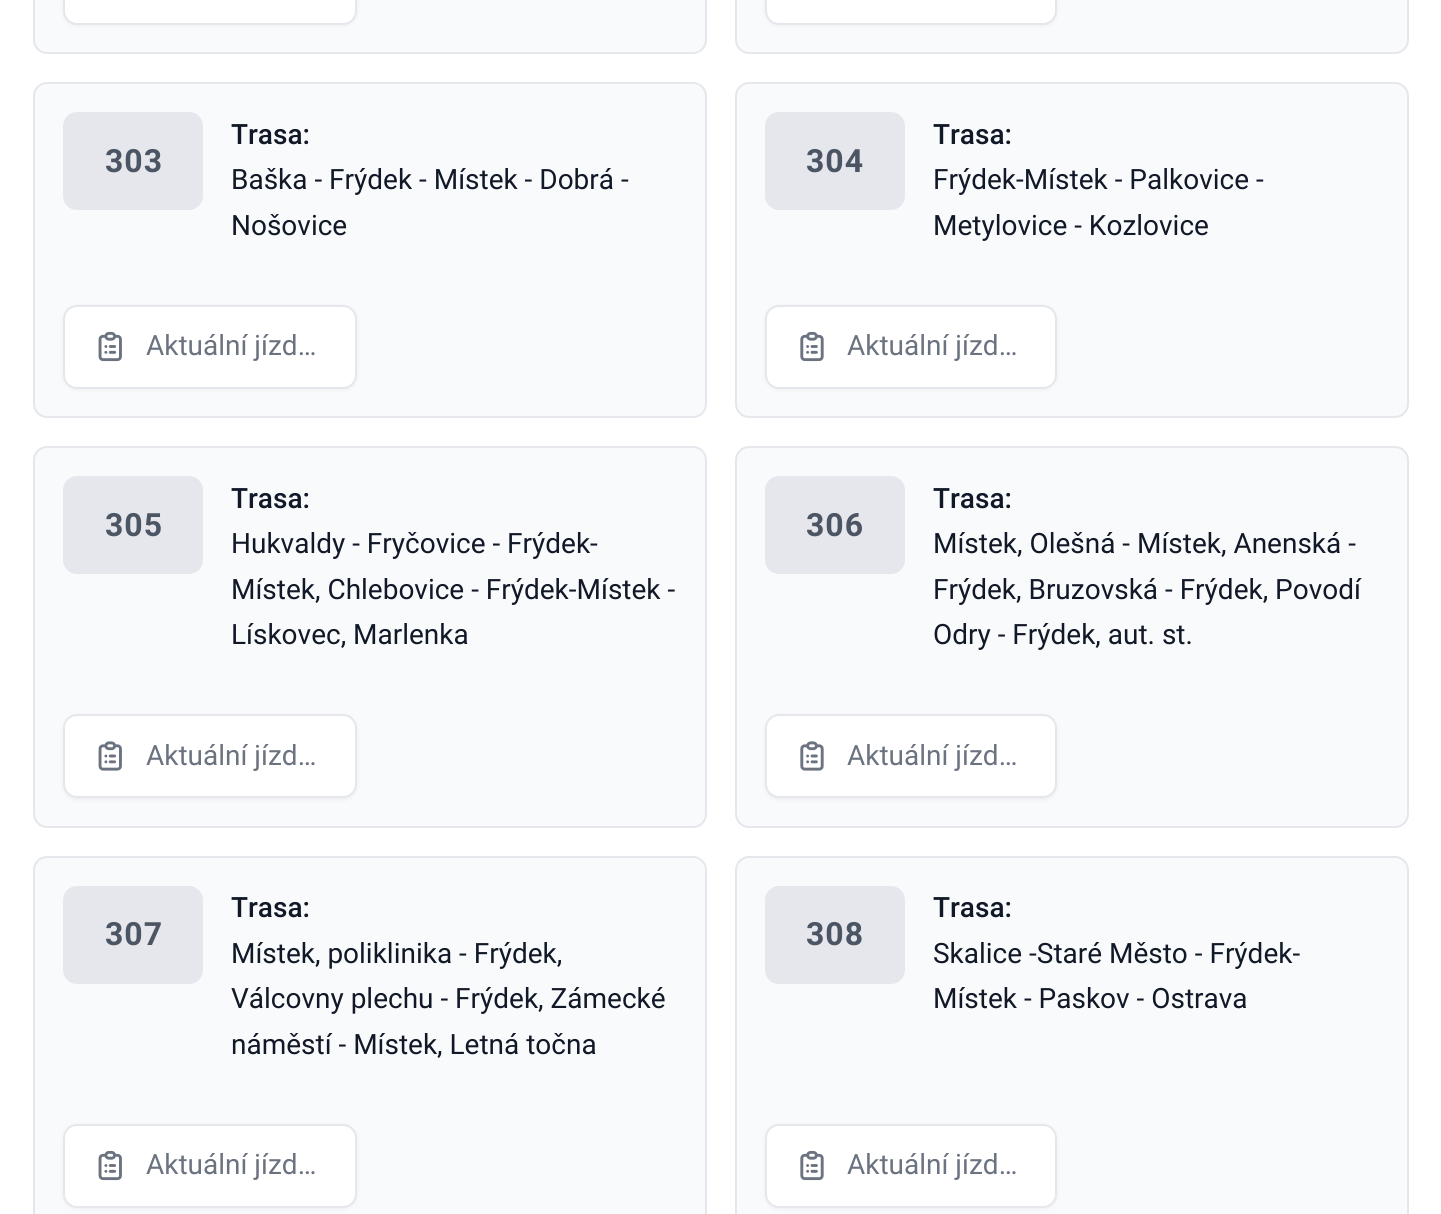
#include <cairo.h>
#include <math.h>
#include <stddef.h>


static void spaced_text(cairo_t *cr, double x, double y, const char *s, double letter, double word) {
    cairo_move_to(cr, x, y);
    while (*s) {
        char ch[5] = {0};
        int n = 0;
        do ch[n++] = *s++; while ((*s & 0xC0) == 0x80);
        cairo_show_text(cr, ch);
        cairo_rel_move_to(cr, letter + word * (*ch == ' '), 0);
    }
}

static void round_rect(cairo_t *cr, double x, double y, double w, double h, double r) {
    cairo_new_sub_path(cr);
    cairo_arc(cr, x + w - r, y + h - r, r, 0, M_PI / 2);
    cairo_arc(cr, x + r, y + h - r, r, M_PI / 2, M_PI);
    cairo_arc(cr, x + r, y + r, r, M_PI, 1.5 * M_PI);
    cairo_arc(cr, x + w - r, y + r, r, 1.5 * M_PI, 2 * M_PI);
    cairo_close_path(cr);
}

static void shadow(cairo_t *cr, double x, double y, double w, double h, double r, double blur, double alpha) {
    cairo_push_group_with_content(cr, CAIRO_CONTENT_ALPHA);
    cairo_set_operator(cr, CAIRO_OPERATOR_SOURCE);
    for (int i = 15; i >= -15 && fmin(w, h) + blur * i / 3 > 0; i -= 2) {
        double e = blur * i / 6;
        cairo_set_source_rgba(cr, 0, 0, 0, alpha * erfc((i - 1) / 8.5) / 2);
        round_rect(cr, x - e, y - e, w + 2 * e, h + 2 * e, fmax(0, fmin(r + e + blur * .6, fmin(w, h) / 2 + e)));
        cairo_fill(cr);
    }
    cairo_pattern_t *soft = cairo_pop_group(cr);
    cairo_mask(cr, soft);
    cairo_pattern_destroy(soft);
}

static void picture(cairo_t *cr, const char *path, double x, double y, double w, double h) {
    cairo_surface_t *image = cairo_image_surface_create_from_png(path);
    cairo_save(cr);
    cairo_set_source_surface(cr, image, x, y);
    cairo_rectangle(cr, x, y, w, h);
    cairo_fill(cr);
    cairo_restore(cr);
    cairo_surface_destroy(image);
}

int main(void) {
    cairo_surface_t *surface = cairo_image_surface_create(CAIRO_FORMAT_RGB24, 1441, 1214);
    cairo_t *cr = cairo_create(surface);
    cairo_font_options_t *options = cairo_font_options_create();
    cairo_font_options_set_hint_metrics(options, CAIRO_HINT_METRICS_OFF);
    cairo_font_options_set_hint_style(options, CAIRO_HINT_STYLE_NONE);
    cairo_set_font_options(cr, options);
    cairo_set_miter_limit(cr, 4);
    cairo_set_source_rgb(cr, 1, 1, 1);
    cairo_paint(cr);
    cairo_set_source_rgb(cr, 0.976, 0.98, 0.984);
    round_rect(cr, 34, -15, 672, 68, 13);
    cairo_fill_preserve(cr);
    cairo_set_source_rgb(cr, 0.898, 0.906, 0.922);
    cairo_stroke(cr);
    cairo_set_source_rgb(cr, 0, 0, 0);
    shadow(cr, 63, -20, 294, 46, 14, 2, 0.05);
    cairo_set_source_rgb(cr, 1, 1, 1);
    round_rect(cr, 64, -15, 292, 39, 13);
    cairo_fill_preserve(cr);
    cairo_set_source_rgb(cr, 0.898, 0.906, 0.922);
    cairo_stroke(cr);
    cairo_set_source_rgb(cr, 0.976, 0.98, 0.984);
    round_rect(cr, 736, -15, 672, 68, 13);
    cairo_fill_preserve(cr);
    cairo_set_source_rgb(cr, 0.898, 0.906, 0.922);
    cairo_stroke(cr);
    cairo_set_source_rgb(cr, 0, 0, 0);
    shadow(cr, 765, -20, 292, 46, 14, 2, 0.05);
    cairo_set_source_rgb(cr, 1, 1, 1);
    round_rect(cr, 766, -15, 290, 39, 13);
    cairo_fill_preserve(cr);
    cairo_set_source_rgb(cr, 0.898, 0.906, 0.922);
    cairo_stroke(cr);
    cairo_set_source_rgb(cr, 0.976, 0.98, 0.984);
    round_rect(cr, 34, 83, 672, 334, 13);
    cairo_fill_preserve(cr);
    cairo_set_source_rgb(cr, 0.898, 0.906, 0.922);
    cairo_stroke(cr);
    round_rect(cr, 63, 112, 140, 98, 14);
    cairo_fill(cr);
    cairo_select_font_face(cr, "Roboto", CAIRO_FONT_SLANT_NORMAL, CAIRO_FONT_WEIGHT_BOLD);
    cairo_set_font_size(cr, 32);
    cairo_set_source_rgb(cr, 0.294, 0.333, 0.388);
    spaced_text(cr, 105, 172, "303", 1, 0);
    cairo_select_font_face(cr, "Roboto Medium", CAIRO_FONT_SLANT_NORMAL, CAIRO_FONT_WEIGHT_NORMAL);
    cairo_set_font_size(cr, 28);
    cairo_set_source_rgb(cr, 0.067, 0.094, 0.153);
    cairo_move_to(cr, 231, 144);
    cairo_show_text(cr, "Trasa:");
    cairo_select_font_face(cr, "Roboto", CAIRO_FONT_SLANT_NORMAL, CAIRO_FONT_WEIGHT_NORMAL);
    cairo_move_to(cr, 231, 189);
    cairo_show_text(cr, "Baška - Frýdek - Místek - Dobrá -");
    cairo_move_to(cr, 231, 235);
    cairo_show_text(cr, "Nošovice");
    cairo_set_source_rgb(cr, 0, 0, 0);
    shadow(cr, 63, 306, 294, 84, 14, 2, 0.05);
    cairo_set_source_rgb(cr, 1, 1, 1);
    round_rect(cr, 64, 306, 292, 82, 13);
    cairo_fill_preserve(cr);
    cairo_set_source_rgb(cr, 0.898, 0.906, 0.922);
    cairo_stroke(cr);
    picture(cr, "img1.png", 98, 331, 24, 31);
    cairo_set_source_rgb(cr, 0.42, 0.447, 0.502);
    cairo_move_to(cr, 146, 355);
    cairo_show_text(cr, "Aktuální jízd…");
    cairo_set_source_rgb(cr, 0.976, 0.98, 0.984);
    round_rect(cr, 736, 83, 672, 334, 13);
    cairo_fill_preserve(cr);
    cairo_set_source_rgb(cr, 0.898, 0.906, 0.922);
    cairo_stroke(cr);
    round_rect(cr, 765, 112, 140, 98, 14);
    cairo_fill(cr);
    cairo_select_font_face(cr, "Roboto", CAIRO_FONT_SLANT_NORMAL, CAIRO_FONT_WEIGHT_BOLD);
    cairo_set_font_size(cr, 32);
    cairo_set_source_rgb(cr, 0.294, 0.333, 0.388);
    spaced_text(cr, 806, 172, "304", 1, 0);
    cairo_select_font_face(cr, "Roboto Medium", CAIRO_FONT_SLANT_NORMAL, CAIRO_FONT_WEIGHT_NORMAL);
    cairo_set_font_size(cr, 28);
    cairo_set_source_rgb(cr, 0.067, 0.094, 0.153);
    cairo_move_to(cr, 933, 144);
    cairo_show_text(cr, "Trasa:");
    cairo_select_font_face(cr, "Roboto", CAIRO_FONT_SLANT_NORMAL, CAIRO_FONT_WEIGHT_NORMAL);
    cairo_move_to(cr, 933, 189);
    cairo_show_text(cr, "Frýdek-Místek - Palkovice -");
    cairo_move_to(cr, 933, 235);
    cairo_show_text(cr, "Metylovice - Kozlovice");
    cairo_set_source_rgb(cr, 0, 0, 0);
    shadow(cr, 765, 306, 292, 84, 14, 2, 0.05);
    cairo_set_source_rgb(cr, 1, 1, 1);
    round_rect(cr, 766, 306, 290, 82, 13);
    cairo_fill_preserve(cr);
    cairo_set_source_rgb(cr, 0.898, 0.906, 0.922);
    cairo_stroke(cr);
    picture(cr, "img2.png", 800, 331, 24, 31);
    cairo_set_source_rgb(cr, 0.42, 0.447, 0.502);
    cairo_move_to(cr, 847, 355);
    cairo_show_text(cr, "Aktuální jízd…");
    cairo_set_source_rgb(cr, 0.976, 0.98, 0.984);
    round_rect(cr, 34, 447, 672, 380, 13);
    cairo_fill_preserve(cr);
    cairo_set_source_rgb(cr, 0.898, 0.906, 0.922);
    cairo_stroke(cr);
    round_rect(cr, 63, 476, 140, 98, 14);
    cairo_fill(cr);
    cairo_select_font_face(cr, "Roboto", CAIRO_FONT_SLANT_NORMAL, CAIRO_FONT_WEIGHT_BOLD);
    cairo_set_font_size(cr, 32);
    cairo_set_source_rgb(cr, 0.294, 0.333, 0.388);
    spaced_text(cr, 105, 536, "305", 1, 0);
    cairo_select_font_face(cr, "Roboto Medium", CAIRO_FONT_SLANT_NORMAL, CAIRO_FONT_WEIGHT_NORMAL);
    cairo_set_font_size(cr, 28);
    cairo_set_source_rgb(cr, 0.067, 0.094, 0.153);
    cairo_move_to(cr, 231, 508);
    cairo_show_text(cr, "Trasa:");
    cairo_select_font_face(cr, "Roboto", CAIRO_FONT_SLANT_NORMAL, CAIRO_FONT_WEIGHT_NORMAL);
    cairo_move_to(cr, 231, 553);
    cairo_show_text(cr, "Hukvaldy - Fryčovice - Frýdek-");
    cairo_move_to(cr, 231, 599);
    cairo_show_text(cr, "Místek, Chlebovice - Frýdek-Místek -");
    cairo_move_to(cr, 231, 644);
    cairo_show_text(cr, "Lískovec, Marlenka");
    cairo_set_source_rgb(cr, 0, 0, 0);
    shadow(cr, 63, 716, 294, 84, 14, 2, 0.05);
    cairo_set_source_rgb(cr, 1, 1, 1);
    round_rect(cr, 64, 715, 292, 82, 13);
    cairo_fill_preserve(cr);
    cairo_set_source_rgb(cr, 0.898, 0.906, 0.922);
    cairo_stroke(cr);
    picture(cr, "img3.png", 98, 741, 24, 30);
    cairo_set_source_rgb(cr, 0.42, 0.447, 0.502);
    cairo_move_to(cr, 146, 765);
    cairo_show_text(cr, "Aktuální jízd…");
    cairo_set_source_rgb(cr, 0.976, 0.98, 0.984);
    round_rect(cr, 736, 447, 672, 380, 13);
    cairo_fill_preserve(cr);
    cairo_set_source_rgb(cr, 0.898, 0.906, 0.922);
    cairo_stroke(cr);
    round_rect(cr, 765, 476, 140, 98, 14);
    cairo_fill(cr);
    cairo_select_font_face(cr, "Roboto", CAIRO_FONT_SLANT_NORMAL, CAIRO_FONT_WEIGHT_BOLD);
    cairo_set_font_size(cr, 32);
    cairo_set_source_rgb(cr, 0.294, 0.333, 0.388);
    spaced_text(cr, 806, 536, "306", 1, 0);
    cairo_select_font_face(cr, "Roboto Medium", CAIRO_FONT_SLANT_NORMAL, CAIRO_FONT_WEIGHT_NORMAL);
    cairo_set_font_size(cr, 28);
    cairo_set_source_rgb(cr, 0.067, 0.094, 0.153);
    cairo_move_to(cr, 933, 508);
    cairo_show_text(cr, "Trasa:");
    cairo_select_font_face(cr, "Roboto", CAIRO_FONT_SLANT_NORMAL, CAIRO_FONT_WEIGHT_NORMAL);
    cairo_move_to(cr, 933, 553);
    cairo_show_text(cr, "Místek, Olešná - Místek, Anenská -");
    cairo_move_to(cr, 933, 599);
    cairo_show_text(cr, "Frýdek, Bruzovská - Frýdek, Povodí");
    cairo_move_to(cr, 933, 644);
    cairo_show_text(cr, "Odry - Frýdek, aut. st.");
    cairo_set_source_rgb(cr, 0, 0, 0);
    shadow(cr, 765, 716, 292, 84, 14, 2, 0.05);
    cairo_set_source_rgb(cr, 1, 1, 1);
    round_rect(cr, 766, 715, 290, 82, 13);
    cairo_fill_preserve(cr);
    cairo_set_source_rgb(cr, 0.898, 0.906, 0.922);
    cairo_stroke(cr);
    picture(cr, "img4.png", 800, 741, 24, 30);
    cairo_set_source_rgb(cr, 0.42, 0.447, 0.502);
    cairo_move_to(cr, 847, 765);
    cairo_show_text(cr, "Aktuální jízd…");
    cairo_set_source_rgb(cr, 0.976, 0.98, 0.984);
    round_rect(cr, 34, 857, 672, 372, 13);
    cairo_fill_preserve(cr);
    cairo_set_source_rgb(cr, 0.898, 0.906, 0.922);
    cairo_stroke(cr);
    round_rect(cr, 63, 886, 140, 98, 14);
    cairo_fill(cr);
    cairo_select_font_face(cr, "Roboto", CAIRO_FONT_SLANT_NORMAL, CAIRO_FONT_WEIGHT_BOLD);
    cairo_set_font_size(cr, 32);
    cairo_set_source_rgb(cr, 0.294, 0.333, 0.388);
    spaced_text(cr, 105, 945, "307", 1, 0);
    cairo_select_font_face(cr, "Roboto Medium", CAIRO_FONT_SLANT_NORMAL, CAIRO_FONT_WEIGHT_NORMAL);
    cairo_set_font_size(cr, 28);
    cairo_set_source_rgb(cr, 0.067, 0.094, 0.153);
    cairo_move_to(cr, 231, 917);
    cairo_show_text(cr, "Trasa:");
    cairo_select_font_face(cr, "Roboto", CAIRO_FONT_SLANT_NORMAL, CAIRO_FONT_WEIGHT_NORMAL);
    cairo_move_to(cr, 231, 963);
    cairo_show_text(cr, "Místek, poliklinika - Frýdek,");
    cairo_move_to(cr, 231, 1008);
    cairo_show_text(cr, "Válcovny plechu - Frýdek, Zámecké");
    cairo_move_to(cr, 231, 1054);
    cairo_show_text(cr, "náměstí - Místek, Letná točna");
    cairo_set_source_rgb(cr, 0, 0, 0);
    shadow(cr, 63, 1125, 294, 84, 14, 2, 0.05);
    cairo_set_source_rgb(cr, 1, 1, 1);
    round_rect(cr, 64, 1125, 292, 82, 13);
    cairo_fill_preserve(cr);
    cairo_set_source_rgb(cr, 0.898, 0.906, 0.922);
    cairo_stroke(cr);
    picture(cr, "img1.png", 98, 1150, 24, 31);
    cairo_set_source_rgb(cr, 0.42, 0.447, 0.502);
    cairo_move_to(cr, 146, 1174);
    cairo_show_text(cr, "Aktuální jízd…");
    cairo_set_source_rgb(cr, 0.976, 0.98, 0.984);
    round_rect(cr, 736, 857, 672, 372, 13);
    cairo_fill_preserve(cr);
    cairo_set_source_rgb(cr, 0.898, 0.906, 0.922);
    cairo_stroke(cr);
    round_rect(cr, 765, 886, 140, 98, 14);
    cairo_fill(cr);
    cairo_select_font_face(cr, "Roboto", CAIRO_FONT_SLANT_NORMAL, CAIRO_FONT_WEIGHT_BOLD);
    cairo_set_font_size(cr, 32);
    cairo_set_source_rgb(cr, 0.294, 0.333, 0.388);
    spaced_text(cr, 806, 945, "308", 1, 0);
    cairo_select_font_face(cr, "Roboto Medium", CAIRO_FONT_SLANT_NORMAL, CAIRO_FONT_WEIGHT_NORMAL);
    cairo_set_font_size(cr, 28);
    cairo_set_source_rgb(cr, 0.067, 0.094, 0.153);
    cairo_move_to(cr, 933, 917);
    cairo_show_text(cr, "Trasa:");
    cairo_select_font_face(cr, "Roboto", CAIRO_FONT_SLANT_NORMAL, CAIRO_FONT_WEIGHT_NORMAL);
    cairo_move_to(cr, 933, 963);
    cairo_show_text(cr, "Skalice -Staré Město - Frýdek-");
    cairo_move_to(cr, 933, 1008);
    cairo_show_text(cr, "Místek - Paskov - Ostrava");
    cairo_set_source_rgb(cr, 0, 0, 0);
    shadow(cr, 765, 1125, 292, 84, 14, 2, 0.05);
    cairo_set_source_rgb(cr, 1, 1, 1);
    round_rect(cr, 766, 1125, 290, 82, 13);
    cairo_fill_preserve(cr);
    cairo_set_source_rgb(cr, 0.898, 0.906, 0.922);
    cairo_stroke(cr);
    picture(cr, "img2.png", 800, 1150, 24, 31);
    cairo_set_source_rgb(cr, 0.42, 0.447, 0.502);
    cairo_move_to(cr, 847, 1174);
    cairo_show_text(cr, "Aktuální jízd…");
    cairo_surface_write_to_png(surface, "page.png");
    cairo_font_options_destroy(options);
    cairo_destroy(cr);
    cairo_surface_destroy(surface);
    return 0;
}
